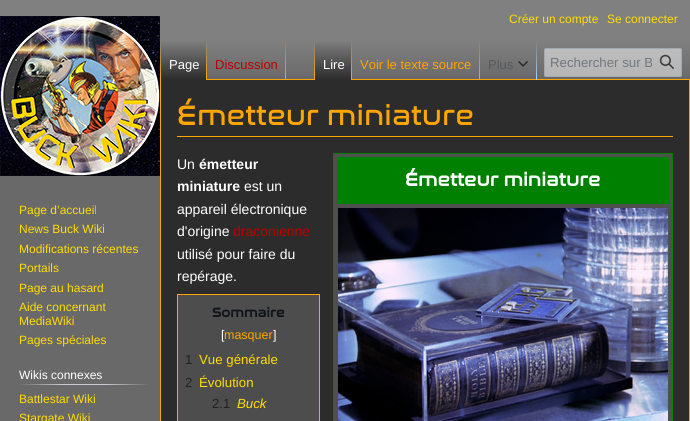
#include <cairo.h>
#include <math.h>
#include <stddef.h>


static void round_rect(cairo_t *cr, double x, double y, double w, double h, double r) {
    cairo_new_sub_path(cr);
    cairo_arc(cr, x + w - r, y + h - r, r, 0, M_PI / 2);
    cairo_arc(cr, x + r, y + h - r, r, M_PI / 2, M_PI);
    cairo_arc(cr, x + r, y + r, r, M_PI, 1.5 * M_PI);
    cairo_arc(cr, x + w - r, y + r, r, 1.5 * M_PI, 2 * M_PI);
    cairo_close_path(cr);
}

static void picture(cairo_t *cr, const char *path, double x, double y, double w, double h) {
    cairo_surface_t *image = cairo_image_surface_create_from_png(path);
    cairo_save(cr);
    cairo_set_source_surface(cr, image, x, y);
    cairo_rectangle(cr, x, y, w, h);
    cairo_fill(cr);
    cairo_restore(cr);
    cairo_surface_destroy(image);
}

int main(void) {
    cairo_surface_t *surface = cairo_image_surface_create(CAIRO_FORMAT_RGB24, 690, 421);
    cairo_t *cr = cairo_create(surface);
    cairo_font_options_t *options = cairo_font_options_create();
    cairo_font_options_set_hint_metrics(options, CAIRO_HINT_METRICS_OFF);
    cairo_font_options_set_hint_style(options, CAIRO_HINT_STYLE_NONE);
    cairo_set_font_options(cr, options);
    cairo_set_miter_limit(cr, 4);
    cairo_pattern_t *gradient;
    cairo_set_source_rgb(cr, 0.412, 0.412, 0.412);
    cairo_paint(cr);
    gradient = cairo_pattern_create_linear(345, 0, 345, 80);
    cairo_pattern_add_color_stop_rgba(gradient, 0.5, 0.502, 0.502, 0.502, 1);
    cairo_pattern_add_color_stop_rgba(gradient, 1, 0.412, 0.412, 0.412, 1);
    cairo_set_source(cr, gradient);
    cairo_pattern_destroy(gradient);
    cairo_rectangle(cr, 0, 0, 690, 76);
    cairo_fill(cr);
    cairo_select_font_face(cr, "Liberation Sans", CAIRO_FONT_SLANT_NORMAL, CAIRO_FONT_WEIGHT_NORMAL);
    cairo_set_font_size(cr, 12);
    cairo_set_source_rgb(cr, 1, 0.867, 0);
    cairo_move_to(cr, 509, 23);
    cairo_show_text(cr, "Créer un compte");
    cairo_move_to(cr, 607, 23);
    cairo_show_text(cr, "Se connecter");
    cairo_set_source_rgb(cr, 0.173, 0.173, 0.173);
    cairo_rectangle(cr, 160.5, 79.5, 529, 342);
    cairo_fill_preserve(cr);
    cairo_set_source_rgb(cr, 1, 0.647, 0);
    cairo_set_line_width(cr, 1);
    cairo_stroke(cr);
    gradient = cairo_pattern_create_linear(161, 80, 161, 40);
    cairo_pattern_add_color_stop_rgba(gradient, 0, 1, 0.647, 0, 1);
    cairo_pattern_add_color_stop_rgba(gradient, 1, 0.502, 0.502, 0.502, 1);
    cairo_set_source(cr, gradient);
    cairo_pattern_destroy(gradient);
    cairo_rectangle(cr, 160, 40, 1, 40);
    cairo_fill(cr);
    gradient = cairo_pattern_create_linear(184, 40, 184, 80);
    cairo_pattern_add_color_stop_rgba(gradient, 0, 0.502, 0.502, 0.502, 1);
    cairo_pattern_add_color_stop_rgba(gradient, 1, 0.173, 0.173, 0.173, 1);
    cairo_set_source(cr, gradient);
    cairo_pattern_destroy(gradient);
    cairo_rectangle(cr, 161, 42, 45, 38);
    cairo_fill(cr);
    gradient = cairo_pattern_create_linear(207, 40, 207, 80);
    cairo_pattern_add_color_stop_rgba(gradient, 0, 0.502, 0.502, 0.502, 1);
    cairo_pattern_add_color_stop_rgba(gradient, 1, 1, 0.647, 0, 1);
    cairo_set_source(cr, gradient);
    cairo_pattern_destroy(gradient);
    cairo_rectangle(cr, 206, 40, 1, 40);
    cairo_fill(cr);
    cairo_set_font_size(cr, 13);
    cairo_set_source_rgb(cr, 1, 1, 1);
    cairo_move_to(cr, 169, 69);
    cairo_show_text(cr, "Page");
    gradient = cairo_pattern_create_linear(286, 40, 286, 80);
    cairo_pattern_add_color_stop_rgba(gradient, 0, 0.502, 0.502, 0.502, 1);
    cairo_pattern_add_color_stop_rgba(gradient, 1, 1, 0.647, 0, 1);
    cairo_set_source(cr, gradient);
    cairo_pattern_destroy(gradient);
    cairo_rectangle(cr, 285, 40, 1, 40);
    cairo_fill(cr);
    cairo_set_source_rgb(cr, 0.729, 0, 0);
    cairo_move_to(cr, 215, 69);
    cairo_show_text(cr, "Discussion");
    gradient = cairo_pattern_create_linear(315, 80, 315, 40);
    cairo_pattern_add_color_stop_rgba(gradient, 0, 1, 0.647, 0, 1);
    cairo_pattern_add_color_stop_rgba(gradient, 1, 0.502, 0.502, 0.502, 1);
    cairo_set_source(cr, gradient);
    cairo_pattern_destroy(gradient);
    cairo_rectangle(cr, 314, 40, 1, 40);
    cairo_fill(cr);
    gradient = cairo_pattern_create_linear(334, 40, 334, 80);
    cairo_pattern_add_color_stop_rgba(gradient, 0, 0.502, 0.502, 0.502, 1);
    cairo_pattern_add_color_stop_rgba(gradient, 1, 0.173, 0.173, 0.173, 1);
    cairo_set_source(cr, gradient);
    cairo_pattern_destroy(gradient);
    cairo_rectangle(cr, 315, 42, 36, 38);
    cairo_fill(cr);
    gradient = cairo_pattern_create_linear(352, 40, 352, 80);
    cairo_pattern_add_color_stop_rgba(gradient, 0, 0.502, 0.502, 0.502, 1);
    cairo_pattern_add_color_stop_rgba(gradient, 1, 1, 0.647, 0, 1);
    cairo_set_source(cr, gradient);
    cairo_pattern_destroy(gradient);
    cairo_rectangle(cr, 351, 40, 1, 40);
    cairo_fill(cr);
    cairo_set_source_rgb(cr, 1, 1, 1);
    cairo_move_to(cr, 323, 69);
    cairo_show_text(cr, "Lire");
    gradient = cairo_pattern_create_linear(480, 40, 480, 80);
    cairo_pattern_add_color_stop_rgba(gradient, 0, 0.502, 0.502, 0.502, 1);
    cairo_pattern_add_color_stop_rgba(gradient, 1, 1, 0.647, 0, 1);
    cairo_set_source(cr, gradient);
    cairo_pattern_destroy(gradient);
    cairo_rectangle(cr, 479, 40, 1, 40);
    cairo_fill(cr);
    cairo_set_source_rgb(cr, 1, 0.647, 0);
    cairo_move_to(cr, 360, 69);
    cairo_show_text(cr, "Voir le texte source");
    gradient = cairo_pattern_create_linear(537, 40, 537, 80);
    cairo_pattern_add_color_stop_rgba(gradient, 0, 0.655, 0.843, 0.976, 0);
    cairo_pattern_add_color_stop_rgba(gradient, 1, 0.655, 0.843, 0.976, 1);
    cairo_set_source(cr, gradient);
    cairo_pattern_destroy(gradient);
    cairo_rectangle(cr, 536, 40, 1, 40);
    cairo_fill(cr);
    cairo_set_source_rgb(cr, 0.329, 0.349, 0.365);
    cairo_move_to(cr, 488, 69);
    cairo_show_text(cr, "Plus");
    picture(cr, "img1.png", 518, 61, 10, 6);
    cairo_set_source_rgba(cr, 1, 1, 1, 0.5);
    round_rect(cr, 544.5, 48.5, 137, 28, 1.5);
    cairo_fill_preserve(cr);
    cairo_set_source_rgb(cr, 0.635, 0.663, 0.694);
    cairo_stroke(cr);
    cairo_save(cr);
    cairo_rectangle(cr, 550, 55, 102, 15);
    cairo_clip(cr);
    cairo_set_font_size(cr, 13.25);
    cairo_set_source_rgb(cr, 0.447, 0.467, 0.49);
    cairo_move_to(cr, 550, 67);
    cairo_show_text(cr, "Rechercher sur B");
    cairo_restore(cr);
    picture(cr, "img2.png", 659, 54, 15, 15);
    picture(cr, "img3.png", 0, 16, 160, 160);
    cairo_set_font_size(cr, 12);
    cairo_set_source_rgb(cr, 1, 0.867, 0);
    cairo_move_to(cr, 19, 214);
    cairo_show_text(cr, "Page d’accueil");
    cairo_move_to(cr, 19, 233);
    cairo_show_text(cr, "News Buck Wiki");
    cairo_move_to(cr, 19, 253);
    cairo_show_text(cr, "Modifications récentes");
    cairo_move_to(cr, 19, 272);
    cairo_show_text(cr, "Portails");
    cairo_move_to(cr, 19, 292);
    cairo_show_text(cr, "Page au hasard");
    cairo_move_to(cr, 19, 311);
    cairo_show_text(cr, "Aide concernant");
    cairo_move_to(cr, 19, 325);
    cairo_show_text(cr, "MediaWiki");
    cairo_move_to(cr, 19, 344);
    cairo_show_text(cr, "Pages spéciales");
    gradient = cairo_pattern_create_linear(19, 385, 150, 385);
    cairo_pattern_add_color_stop_rgba(gradient, 0, 0.412, 0.412, 0.412, 1);
    cairo_pattern_add_color_stop_rgba(gradient, 0.33, 0.784, 0.8, 0.82, 1);
    cairo_pattern_add_color_stop_rgba(gradient, 0.66, 0.784, 0.8, 0.82, 1);
    cairo_pattern_add_color_stop_rgba(gradient, 1, 0.412, 0.412, 0.412, 1);
    cairo_set_source(cr, gradient);
    cairo_pattern_destroy(gradient);
    cairo_rectangle(cr, 19, 384, 131, 1);
    cairo_fill(cr);
    cairo_set_source_rgb(cr, 1, 1, 1);
    cairo_move_to(cr, 19, 379);
    cairo_show_text(cr, "Wikis connexes");
    cairo_set_source_rgb(cr, 1, 0.867, 0);
    cairo_move_to(cr, 19, 403);
    cairo_show_text(cr, "Battlestar Wiki");
    cairo_move_to(cr, 19, 422);
    cairo_show_text(cr, "Stargate Wiki");
    cairo_set_source_rgb(cr, 1, 0.647, 0);
    cairo_rectangle(cr, 177, 136, 496, 1);
    cairo_fill(cr);
    cairo_select_font_face(cr, "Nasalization", CAIRO_FONT_SLANT_NORMAL, CAIRO_FONT_WEIGHT_NORMAL);
    cairo_set_font_size(cr, 28.75);
    cairo_move_to(cr, 177, 125);
    cairo_show_text(cr, "Émetteur miniature");
    cairo_select_font_face(cr, "Liberation Sans", CAIRO_FONT_SLANT_NORMAL, CAIRO_FONT_WEIGHT_NORMAL);
    cairo_set_font_size(cr, 14);
    cairo_set_source_rgb(cr, 1, 1, 1);
    cairo_move_to(cr, 177, 169);
    cairo_show_text(cr, "Un");
    cairo_select_font_face(cr, "Liberation Sans", CAIRO_FONT_SLANT_NORMAL, CAIRO_FONT_WEIGHT_BOLD);
    cairo_move_to(cr, 199, 169);
    cairo_show_text(cr, "émetteur");
    cairo_move_to(cr, 177, 191);
    cairo_show_text(cr, "miniature");
    cairo_select_font_face(cr, "Liberation Sans", CAIRO_FONT_SLANT_NORMAL, CAIRO_FONT_WEIGHT_NORMAL);
    cairo_move_to(cr, 244, 191);
    cairo_show_text(cr, "est un");
    cairo_move_to(cr, 177, 214);
    cairo_show_text(cr, "appareil électronique");
    cairo_move_to(cr, 177, 236);
    cairo_show_text(cr, "d'origine");
    cairo_set_source_rgb(cr, 0.729, 0, 0);
    cairo_move_to(cr, 233, 236);
    cairo_show_text(cr, "draconienne");
    cairo_set_source_rgb(cr, 1, 1, 1);
    cairo_move_to(cr, 177, 259);
    cairo_show_text(cr, "utilisé pour faire du");
    cairo_move_to(cr, 177, 281);
    cairo_show_text(cr, "repérage.");
    cairo_set_source_rgb(cr, 0.31, 0.31, 0.31);
    cairo_rectangle(cr, 333.5, 153.5, 339, 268);
    cairo_fill_preserve(cr);
    cairo_set_source_rgb(cr, 0, 0.502, 0);
    cairo_stroke(cr);
    cairo_rectangle(cr, 337, 157, 332, 47);
    cairo_fill(cr);
    cairo_select_font_face(cr, "Nasalization", CAIRO_FONT_SLANT_NORMAL, CAIRO_FONT_WEIGHT_BOLD);
    cairo_set_font_size(cr, 18.9);
    cairo_set_source_rgb(cr, 1, 1, 1);
    cairo_move_to(cr, 405, 186);
    cairo_show_text(cr, "Émetteur miniature");
    picture(cr, "img4.png", 338, 208, 330, 213);
    cairo_set_source_rgb(cr, 0.302, 0.302, 0.302);
    cairo_rectangle(cr, 177.5, 294.5, 142, 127);
    cairo_fill_preserve(cr);
    cairo_set_source_rgb(cr, 1, 0.647, 0);
    cairo_stroke(cr);
    cairo_set_font_size(cr, 13.25);
    cairo_set_source_rgb(cr, 0.063, 0.078, 0.094);
    cairo_move_to(cr, 212, 317);
    cairo_show_text(cr, "Sommaire");
    cairo_select_font_face(cr, "Liberation Sans", CAIRO_FONT_SLANT_NORMAL, CAIRO_FONT_WEIGHT_NORMAL);
    cairo_set_font_size(cr, 12.5);
    cairo_set_source_rgb(cr, 1, 1, 1);
    cairo_move_to(cr, 221, 339);
    cairo_show_text(cr, "[");
    cairo_set_source_rgb(cr, 1, 0.647, 0);
    cairo_move_to(cr, 224, 339);
    cairo_show_text(cr, "masquer");
    cairo_set_source_rgb(cr, 1, 1, 1);
    cairo_move_to(cr, 273, 339);
    cairo_show_text(cr, "]");
    cairo_set_font_size(cr, 13.25);
    cairo_set_source_rgb(cr, 0.125, 0.129, 0.133);
    cairo_move_to(cr, 185, 364);
    cairo_show_text(cr, "1");
    cairo_set_source_rgb(cr, 1, 0.867, 0);
    cairo_move_to(cr, 199, 364);
    cairo_show_text(cr, "Vue générale");
    cairo_set_source_rgb(cr, 0.125, 0.129, 0.133);
    cairo_move_to(cr, 185, 387);
    cairo_show_text(cr, "2");
    cairo_set_source_rgb(cr, 1, 0.867, 0);
    cairo_move_to(cr, 199, 387);
    cairo_show_text(cr, "Évolution");
    cairo_set_source_rgb(cr, 0.125, 0.129, 0.133);
    cairo_move_to(cr, 212, 408);
    cairo_show_text(cr, "2.1");
    cairo_select_font_face(cr, "Liberation Sans", CAIRO_FONT_SLANT_ITALIC, CAIRO_FONT_WEIGHT_NORMAL);
    cairo_set_source_rgb(cr, 1, 0.867, 0);
    cairo_move_to(cr, 237, 408);
    cairo_show_text(cr, "Buck");
    cairo_surface_write_to_png(surface, "page.png");
    cairo_font_options_destroy(options);
    cairo_destroy(cr);
    cairo_surface_destroy(surface);
    return 0;
}
